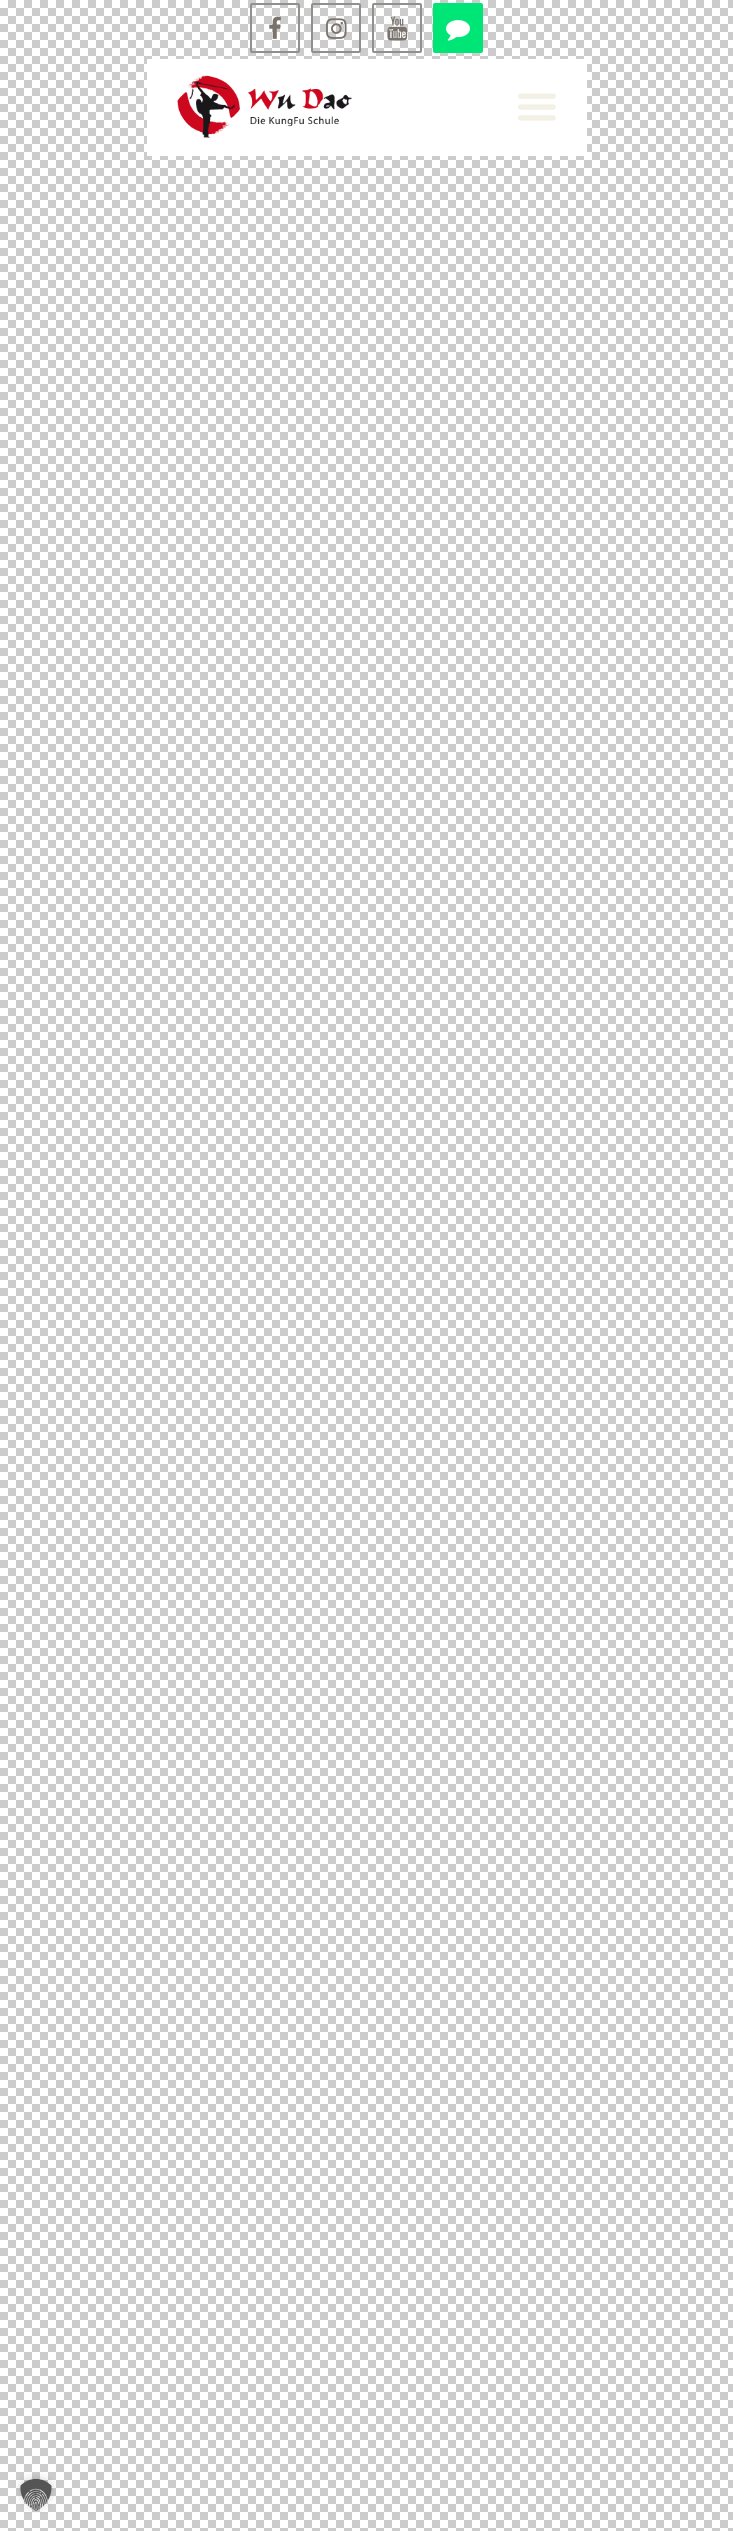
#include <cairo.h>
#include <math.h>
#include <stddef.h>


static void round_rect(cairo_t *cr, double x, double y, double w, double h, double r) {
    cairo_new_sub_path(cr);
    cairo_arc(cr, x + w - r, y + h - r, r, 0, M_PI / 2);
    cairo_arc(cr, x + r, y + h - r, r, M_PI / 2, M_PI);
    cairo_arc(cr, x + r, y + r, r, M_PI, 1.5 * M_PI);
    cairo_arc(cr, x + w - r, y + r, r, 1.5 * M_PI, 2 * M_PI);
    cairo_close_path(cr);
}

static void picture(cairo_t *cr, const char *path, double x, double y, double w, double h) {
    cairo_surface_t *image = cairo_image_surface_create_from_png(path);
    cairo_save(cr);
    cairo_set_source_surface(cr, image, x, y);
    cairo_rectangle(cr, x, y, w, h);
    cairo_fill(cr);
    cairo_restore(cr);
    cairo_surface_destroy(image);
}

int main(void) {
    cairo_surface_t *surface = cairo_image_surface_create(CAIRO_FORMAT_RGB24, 733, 2531);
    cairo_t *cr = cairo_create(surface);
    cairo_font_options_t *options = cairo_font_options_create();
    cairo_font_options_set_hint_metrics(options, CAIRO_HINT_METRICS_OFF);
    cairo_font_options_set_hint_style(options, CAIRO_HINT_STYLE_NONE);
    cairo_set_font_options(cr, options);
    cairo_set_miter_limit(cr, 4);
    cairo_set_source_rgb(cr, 1, 1, 1);
    cairo_paint(cr);
    picture(cr, "img1.png", 0, 0, 733, 2531);
    round_rect(cr, 251, 4, 48, 48, 1);
    cairo_set_source_rgb(cr, 0.569, 0.565, 0.549);
    cairo_stroke(cr);
    picture(cr, "img2.png", 269, 16, 12, 23);
    round_rect(cr, 312, 4, 48, 48, 1);
    cairo_stroke(cr);
    picture(cr, "img3.png", 326, 18, 21, 21);
    round_rect(cr, 373, 4, 48, 48, 1);
    cairo_stroke(cr);
    picture(cr, "img4.png", 387, 16, 21, 25);
    cairo_set_source_rgb(cr, 0, 0.902, 0.463);
    round_rect(cr, 434, 4, 48, 48, 1);
    cairo_fill_preserve(cr);
    cairo_stroke(cr);
    picture(cr, "img5.png", 446, 20, 24, 21);
    cairo_set_source_rgb(cr, 1, 1, 1);
    cairo_rectangle(cr, 147, 59, 440, 97);
    cairo_fill(cr);
    picture(cr, "img6.png", 177, 75, 175, 63);
    picture(cr, "img7.png", 518, 93, 38, 28);
    picture(cr, "img8.png", 16, 2474, 40, 39);
    cairo_surface_write_to_png(surface, "page.png");
    cairo_font_options_destroy(options);
    cairo_destroy(cr);
    cairo_surface_destroy(surface);
    return 0;
}
